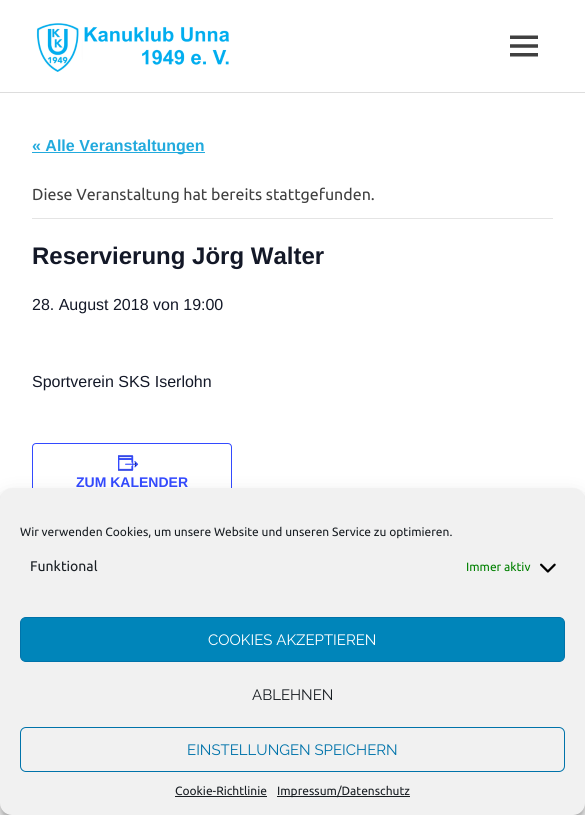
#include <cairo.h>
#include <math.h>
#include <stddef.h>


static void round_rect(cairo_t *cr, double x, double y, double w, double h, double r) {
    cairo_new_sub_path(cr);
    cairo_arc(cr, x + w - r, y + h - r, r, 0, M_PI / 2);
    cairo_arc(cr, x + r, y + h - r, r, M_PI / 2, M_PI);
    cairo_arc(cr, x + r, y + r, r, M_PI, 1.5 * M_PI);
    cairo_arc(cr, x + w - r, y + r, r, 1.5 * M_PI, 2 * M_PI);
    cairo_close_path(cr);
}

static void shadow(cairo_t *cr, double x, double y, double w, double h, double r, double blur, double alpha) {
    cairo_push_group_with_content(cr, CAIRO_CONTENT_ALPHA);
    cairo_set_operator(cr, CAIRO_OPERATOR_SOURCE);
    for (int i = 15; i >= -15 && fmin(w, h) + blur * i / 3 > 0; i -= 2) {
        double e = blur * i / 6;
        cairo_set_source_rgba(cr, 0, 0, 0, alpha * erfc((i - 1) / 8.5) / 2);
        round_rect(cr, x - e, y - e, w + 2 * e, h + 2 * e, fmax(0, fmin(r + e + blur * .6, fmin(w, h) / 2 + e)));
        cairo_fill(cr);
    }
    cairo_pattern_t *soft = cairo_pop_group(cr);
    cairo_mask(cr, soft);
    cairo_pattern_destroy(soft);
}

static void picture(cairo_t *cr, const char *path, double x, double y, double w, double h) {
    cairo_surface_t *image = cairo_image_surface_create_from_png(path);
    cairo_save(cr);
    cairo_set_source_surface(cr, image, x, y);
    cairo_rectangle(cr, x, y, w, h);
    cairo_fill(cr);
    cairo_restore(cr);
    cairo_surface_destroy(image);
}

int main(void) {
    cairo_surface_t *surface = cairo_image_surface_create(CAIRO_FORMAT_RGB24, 585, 815);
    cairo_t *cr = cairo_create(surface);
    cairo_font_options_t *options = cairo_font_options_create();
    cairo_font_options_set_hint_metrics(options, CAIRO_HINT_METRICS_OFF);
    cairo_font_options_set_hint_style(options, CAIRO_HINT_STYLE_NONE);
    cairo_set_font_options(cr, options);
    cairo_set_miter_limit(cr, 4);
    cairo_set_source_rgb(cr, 1, 1, 1);
    cairo_paint(cr);
    cairo_set_source_rgb(cr, 0.867, 0.867, 0.867);
    cairo_rectangle(cr, 0, 92, 585, 1);
    cairo_fill(cr);
    picture(cr, "img1.png", 36, 23, 194, 49);
    picture(cr, "img2.png", 510, 35, 28, 22);
    cairo_set_source_rgb(cr, 0.133, 0.667, 0.867);
    cairo_rectangle(cr, 32, 152, 173, 1);
    cairo_fill(cr);
    cairo_select_font_face(cr, "Liberation Sans", CAIRO_FONT_SLANT_NORMAL, CAIRO_FONT_WEIGHT_BOLD);
    cairo_set_font_size(cr, 16);
    cairo_move_to(cr, 32, 151);
    cairo_show_text(cr, "« Alle Veranstaltungen");
    cairo_set_source_rgb(cr, 0.894, 0.894, 0.894);
    cairo_rectangle(cr, 32, 218, 521, 1);
    cairo_fill(cr);
    cairo_select_font_face(cr, "Ubuntu", CAIRO_FONT_SLANT_NORMAL, CAIRO_FONT_WEIGHT_NORMAL);
    cairo_set_source_rgb(cr, 0.251, 0.251, 0.251);
    cairo_move_to(cr, 32, 200);
    cairo_show_text(cr, "Diese Veranstaltung hat bereits stattgefunden.");
    cairo_select_font_face(cr, "Liberation Sans", CAIRO_FONT_SLANT_NORMAL, CAIRO_FONT_WEIGHT_BOLD);
    cairo_set_font_size(cr, 24);
    cairo_set_source_rgb(cr, 0.078, 0.094, 0.153);
    cairo_move_to(cr, 32, 264);
    cairo_show_text(cr, "Reservierung Jörg Walter");
    cairo_select_font_face(cr, "Liberation Sans", CAIRO_FONT_SLANT_NORMAL, CAIRO_FONT_WEIGHT_NORMAL);
    cairo_set_font_size(cr, 16);
    cairo_move_to(cr, 32, 310);
    cairo_show_text(cr, "28. August 2018 von 19:00");
    cairo_move_to(cr, 32, 387);
    cairo_show_text(cr, "Sportverein SKS Iserlohn");
    round_rect(cr, 32.5, 443.5, 199, 98, 3.5);
    cairo_set_source_rgb(cr, 0.2, 0.29, 1);
    cairo_set_line_width(cr, 1);
    cairo_stroke(cr);
    picture(cr, "img3.png", 118, 455, 21, 16);
    cairo_select_font_face(cr, "Liberation Sans", CAIRO_FONT_SLANT_NORMAL, CAIRO_FONT_WEIGHT_BOLD);
    cairo_set_font_size(cr, 14);
    cairo_move_to(cr, 76, 487);
    cairo_show_text(cr, "ZUM KALENDER");
    cairo_set_source_rgb(cr, 0, 0, 0);
    shadow(cr, 0, 494, 585, 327, 12, 3, 0.23);
    shadow(cr, 0, 498, 585, 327, 12, 10, 0.19);
    cairo_set_source_rgb(cr, 0.945, 0.945, 0.945);
    round_rect(cr, 0, 488, 585, 327, 12);
    cairo_fill(cr);
    cairo_select_font_face(cr, "Ubuntu", CAIRO_FONT_SLANT_NORMAL, CAIRO_FONT_WEIGHT_NORMAL);
    cairo_set_font_size(cr, 12);
    cairo_set_source_rgb(cr, 0.098, 0.118, 0.137);
    cairo_move_to(cr, 20, 536);
    cairo_show_text(cr, "Wir verwenden Cookies, um unsere Website und unseren Service zu optimieren.");
    cairo_set_font_size(cr, 14);
    cairo_move_to(cr, 30, 571);
    cairo_show_text(cr, "Funktional");
    cairo_set_font_size(cr, 12);
    cairo_set_source_rgb(cr, 0, 0.502, 0);
    cairo_move_to(cr, 466, 571);
    cairo_show_text(cr, "Immer aktiv");
    picture(cr, "img4.png", 540, 563, 16, 10);
    cairo_set_source_rgb(cr, 0, 0.522, 0.729);
    round_rect(cr, 20.5, 617.5, 544, 44, 5.5);
    cairo_fill_preserve(cr);
    cairo_set_source_rgb(cr, 0, 0.451, 0.667);
    cairo_stroke(cr);
    cairo_select_font_face(cr, "Raleway", CAIRO_FONT_SLANT_NORMAL, CAIRO_FONT_WEIGHT_NORMAL);
    cairo_set_font_size(cr, 15);
    cairo_set_source_rgb(cr, 1, 1, 1);
    cairo_move_to(cr, 208, 645);
    cairo_show_text(cr, "COOKIES AKZEPTIEREN");
    cairo_set_source_rgb(cr, 0.098, 0.118, 0.137);
    cairo_move_to(cr, 252, 700);
    cairo_show_text(cr, "ABLEHNEN");
    round_rect(cr, 20.5, 727.5, 544, 44, 5.5);
    cairo_set_source_rgb(cr, 0, 0.451, 0.667);
    cairo_stroke(cr);
    cairo_move_to(cr, 187, 755);
    cairo_show_text(cr, "EINSTELLUNGEN SPEICHERN");
    cairo_select_font_face(cr, "Ubuntu", CAIRO_FONT_SLANT_NORMAL, CAIRO_FONT_WEIGHT_NORMAL);
    cairo_set_font_size(cr, 12);
    cairo_set_source_rgb(cr, 0.098, 0.118, 0.137);
    cairo_move_to(cr, 175, 795);
    cairo_show_text(cr, "Cookie-Richtlinie");
    cairo_rectangle(cr, 175, 796, 92, 1);
    cairo_fill(cr);
    cairo_rectangle(cr, 277, 796, 133, 1);
    cairo_fill(cr);
    cairo_move_to(cr, 277, 795);
    cairo_show_text(cr, "Impressum/Datenschutz");
    cairo_surface_write_to_png(surface, "page.png");
    cairo_font_options_destroy(options);
    cairo_destroy(cr);
    cairo_surface_destroy(surface);
    return 0;
}
